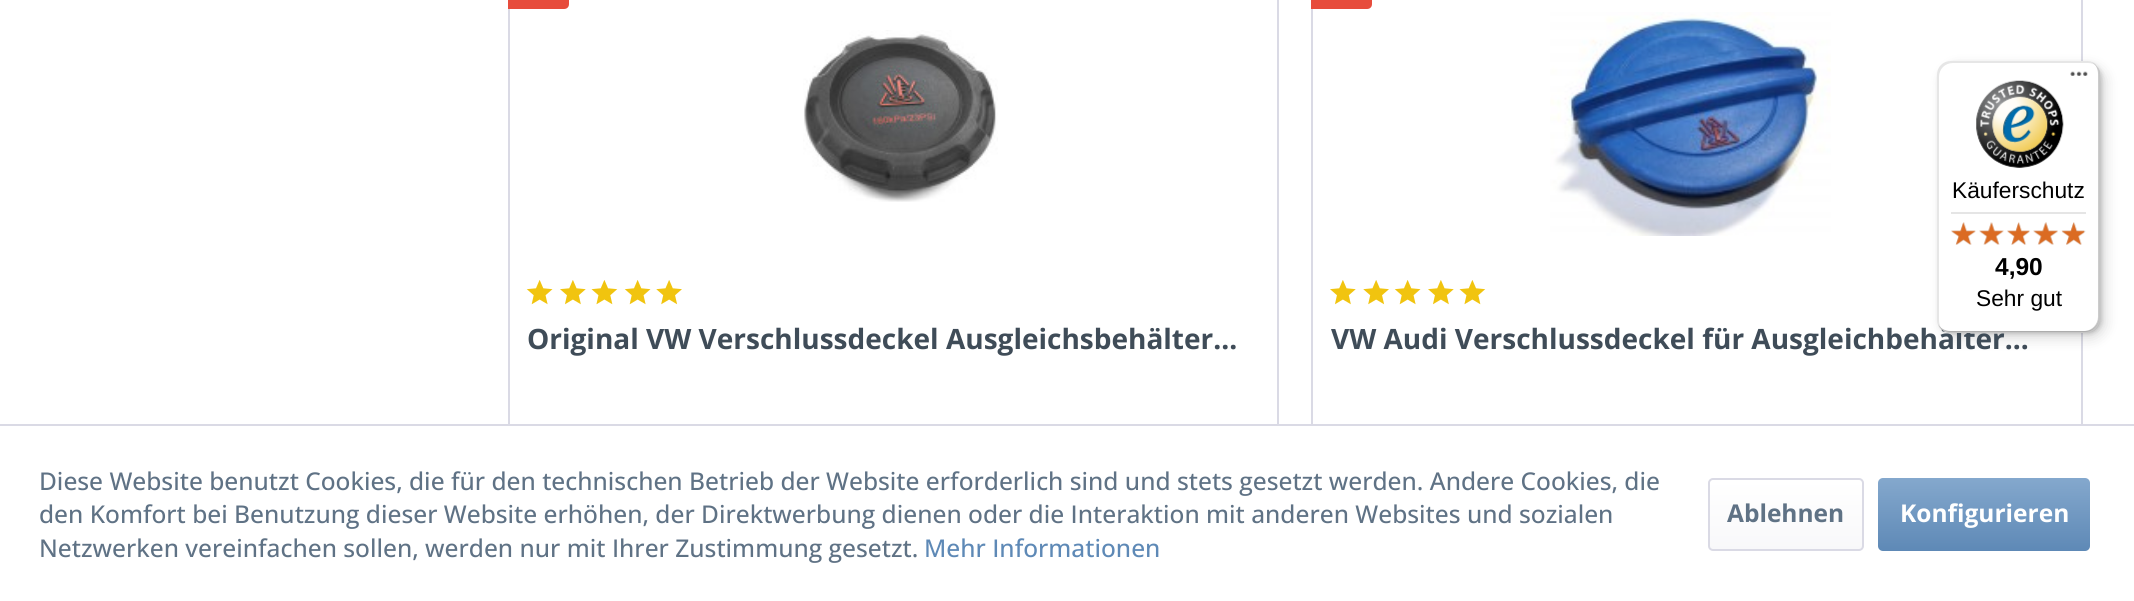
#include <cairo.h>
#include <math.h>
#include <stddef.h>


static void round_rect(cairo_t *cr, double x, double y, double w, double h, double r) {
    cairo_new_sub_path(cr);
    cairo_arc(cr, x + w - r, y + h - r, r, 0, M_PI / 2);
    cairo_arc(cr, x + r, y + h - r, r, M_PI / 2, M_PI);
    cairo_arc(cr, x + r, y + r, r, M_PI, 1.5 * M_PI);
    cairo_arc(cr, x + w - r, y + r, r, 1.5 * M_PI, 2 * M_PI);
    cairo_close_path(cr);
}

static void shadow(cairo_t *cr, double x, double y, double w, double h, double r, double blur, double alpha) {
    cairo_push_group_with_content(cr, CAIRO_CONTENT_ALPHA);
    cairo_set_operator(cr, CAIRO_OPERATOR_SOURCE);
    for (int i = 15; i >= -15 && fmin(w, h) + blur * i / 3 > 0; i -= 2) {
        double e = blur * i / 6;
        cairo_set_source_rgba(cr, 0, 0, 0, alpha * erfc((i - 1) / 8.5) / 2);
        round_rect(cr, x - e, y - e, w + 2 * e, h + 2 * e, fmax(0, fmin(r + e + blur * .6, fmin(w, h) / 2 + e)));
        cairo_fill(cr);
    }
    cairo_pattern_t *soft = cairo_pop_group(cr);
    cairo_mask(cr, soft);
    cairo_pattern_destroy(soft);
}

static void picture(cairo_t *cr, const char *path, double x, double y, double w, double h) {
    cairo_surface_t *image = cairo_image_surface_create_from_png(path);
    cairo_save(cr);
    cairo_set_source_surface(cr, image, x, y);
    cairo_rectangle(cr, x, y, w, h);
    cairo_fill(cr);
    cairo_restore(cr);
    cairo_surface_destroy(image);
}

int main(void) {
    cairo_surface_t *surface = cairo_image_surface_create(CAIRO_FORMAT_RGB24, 2134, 601);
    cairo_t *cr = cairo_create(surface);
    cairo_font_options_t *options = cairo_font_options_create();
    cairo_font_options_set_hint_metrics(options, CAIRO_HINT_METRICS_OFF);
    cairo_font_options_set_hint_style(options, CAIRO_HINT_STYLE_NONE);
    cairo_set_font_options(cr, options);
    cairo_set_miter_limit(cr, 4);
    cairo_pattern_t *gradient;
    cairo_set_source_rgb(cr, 1, 1, 1);
    cairo_paint(cr);
    cairo_rectangle(cr, 1312, -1, 770, 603);
    cairo_set_source_rgb(cr, 0.855, 0.855, 0.898);
    cairo_stroke(cr);
    cairo_set_source_rgb(cr, 0, 0, 0);
    shadow(cr, 1943, 67, 162, 271, 14, 7, 0.15);
    shadow(cr, 1939, 63, 163, 271, 14, 2, 0.15);
    cairo_select_font_face(cr, "Open Sans", CAIRO_FONT_SLANT_NORMAL, CAIRO_FONT_WEIGHT_BOLD);
    cairo_set_font_size(cr, 28);
    cairo_set_source_rgb(cr, 0.247, 0.298, 0.345);
    cairo_move_to(cr, 1331, 349);
    cairo_show_text(cr, "VW Audi Verschlussdeckel für Ausgleichbehälter...");
    cairo_set_source_rgb(cr, 1, 1, 1);
    round_rect(cr, 1937, 61, 163, 272, 14);
    cairo_fill(cr);
    cairo_set_source_rgba(cr, 0, 0, 0, 0.1);
    cairo_new_path(cr);
    cairo_move_to(cr, 1953, 63);
    cairo_line_to(cr, 2088, 63);
    cairo_curve_to(cr, 2091, 63, 2095, 64, 2097, 67);
    cairo_curve_to(cr, 2095, 63, 2091, 61, 2086, 61);
    cairo_line_to(cr, 1951, 61);
    cairo_curve_to(cr, 1943, 61, 1937, 67, 1937, 75);
    cairo_line_to(cr, 1937, 319);
    cairo_curve_to(cr, 1937, 325, 1940, 329, 1945, 332);
    cairo_curve_to(cr, 1941, 329, 1939, 325, 1939, 320);
    cairo_line_to(cr, 1939, 77);
    cairo_curve_to(cr, 1939, 69, 1945, 63, 1953, 63);
    cairo_close_path(cr);
    cairo_fill(cr);
    cairo_set_source_rgba(cr, 0, 0, 0, 0.2);
    cairo_new_path(cr);
    cairo_move_to(cr, 1938, 324);
    cairo_curve_to(cr, 1940, 329, 1945, 333, 1951, 333);
    cairo_line_to(cr, 2086, 333);
    cairo_curve_to(cr, 2094, 333, 2100, 327, 2100, 319);
    cairo_line_to(cr, 2100, 75);
    cairo_curve_to(cr, 2100, 69, 2097, 65, 2092, 62);
    cairo_curve_to(cr, 2096, 65, 2098, 69, 2098, 74);
    cairo_line_to(cr, 2098, 317);
    cairo_curve_to(cr, 2098, 324, 2092, 331, 2084, 331);
    cairo_line_to(cr, 1950, 331);
    cairo_curve_to(cr, 1945, 331, 1940, 328, 1938, 324);
    cairo_close_path(cr);
    cairo_fill(cr);
    cairo_set_source_rgba(cr, 0.196, 0.196, 0.196, 0.2);
    cairo_new_path(cr);
    cairo_move_to(cr, 1938, 325);
    cairo_curve_to(cr, 1941, 330, 1945, 333, 1951, 333);
    cairo_line_to(cr, 2086, 333);
    cairo_curve_to(cr, 2094, 333, 2100, 327, 2100, 319);
    cairo_line_to(cr, 2100, 75);
    cairo_curve_to(cr, 2100, 71, 2099, 68, 2096, 66);
    cairo_curve_to(cr, 2098, 68, 2099, 71, 2099, 74);
    cairo_line_to(cr, 2099, 317);
    cairo_curve_to(cr, 2099, 325, 2093, 331, 2085, 331);
    cairo_line_to(cr, 1950, 331);
    cairo_curve_to(cr, 1945, 331, 1941, 329, 1938, 325);
    cairo_close_path(cr);
    cairo_fill(cr);
    cairo_set_source_rgba(cr, 1, 1, 1, 0.3);
    cairo_new_path(cr);
    cairo_move_to(cr, 1939, 326);
    cairo_curve_to(cr, 1941, 330, 1946, 333, 1951, 333);
    cairo_line_to(cr, 2086, 333);
    cairo_curve_to(cr, 2094, 333, 2100, 327, 2100, 319);
    cairo_line_to(cr, 2100, 75);
    cairo_curve_to(cr, 2100, 70, 2098, 66, 2095, 64);
    cairo_curve_to(cr, 2097, 67, 2099, 70, 2099, 74);
    cairo_line_to(cr, 2099, 318);
    cairo_curve_to(cr, 2099, 325, 2093, 332, 2085, 332);
    cairo_line_to(cr, 1950, 332);
    cairo_curve_to(cr, 1946, 332, 1941, 329, 1939, 326);
    cairo_close_path(cr);
    cairo_fill(cr);
    picture(cr, "img1.png", 2070, 71, 18, 5);
    picture(cr, "img2.png", 1976, 80, 88, 88);
    cairo_select_font_face(cr, "Liberation Sans", CAIRO_FONT_SLANT_NORMAL, CAIRO_FONT_WEIGHT_NORMAL);
    cairo_set_font_size(cr, 22.75);
    cairo_set_source_rgb(cr, 0, 0, 0);
    cairo_move_to(cr, 1952, 198);
    cairo_show_text(cr, "Käuferschutz");
    cairo_set_source_rgb(cr, 0.898, 0.898, 0.898);
    cairo_rectangle(cr, 1951, 212, 135, 2);
    cairo_fill(cr);
    picture(cr, "img3.png", 1951, 222, 25, 23);
    picture(cr, "img4.png", 1979, 222, 25, 23);
    picture(cr, "img5.png", 2007, 222, 23, 23);
    picture(cr, "img6.png", 2033, 222, 25, 23);
    picture(cr, "img7.png", 2062, 222, 24, 23);
    picture(cr, "img8.png", 1951, 222, 25, 23);
    picture(cr, "img9.png", 1979, 222, 25, 23);
    picture(cr, "img10.png", 2007, 222, 23, 23);
    picture(cr, "img11.png", 2033, 222, 25, 23);
    picture(cr, "img12.png", 2061, 222, 24, 23);
    cairo_select_font_face(cr, "Liberation Sans", CAIRO_FONT_SLANT_NORMAL, CAIRO_FONT_WEIGHT_BOLD);
    cairo_set_font_size(cr, 24.5);
    cairo_set_source_rgb(cr, 0, 0, 0);
    cairo_move_to(cr, 1995, 275);
    cairo_show_text(cr, "4,90");
    cairo_select_font_face(cr, "Liberation Sans", CAIRO_FONT_SLANT_NORMAL, CAIRO_FONT_WEIGHT_NORMAL);
    cairo_set_font_size(cr, 22.75);
    cairo_move_to(cr, 1976, 306);
    cairo_show_text(cr, "Sehr gut");
    cairo_rectangle(cr, 509, -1, 769, 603);
    cairo_set_source_rgb(cr, 0.855, 0.855, 0.898);
    cairo_stroke(cr);
    cairo_set_source_rgb(cr, 0.906, 0.298, 0.235);
    cairo_new_path(cr);
    cairo_move_to(cr, 508, -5);
    cairo_line_to(cr, 564, -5);
    cairo_curve_to(cr, 567, -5, 569, -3, 569, 0);
    cairo_line_to(cr, 569, 4);
    cairo_curve_to(cr, 569, 7, 567, 9, 564, 9);
    cairo_line_to(cr, 508, 9);
    cairo_close_path(cr);
    cairo_fill(cr);
    picture(cr, "img13.png", 803, 30, 195, 172);
    picture(cr, "img14.png", 526, 280, 27, 25);
    picture(cr, "img15.png", 560, 280, 26, 25);
    picture(cr, "img16.png", 591, 280, 27, 25);
    picture(cr, "img14.png", 624, 280, 27, 25);
    picture(cr, "img17.png", 656, 280, 26, 25);
    cairo_select_font_face(cr, "Open Sans", CAIRO_FONT_SLANT_NORMAL, CAIRO_FONT_WEIGHT_BOLD);
    cairo_set_font_size(cr, 28);
    cairo_set_source_rgb(cr, 0.247, 0.298, 0.345);
    cairo_move_to(cr, 527, 349);
    cairo_show_text(cr, "Original VW Verschlussdeckel Ausgleichsbehälter...");
    cairo_set_source_rgb(cr, 0.906, 0.298, 0.235);
    cairo_new_path(cr);
    cairo_move_to(cr, 1311, -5);
    cairo_line_to(cr, 1367, -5);
    cairo_curve_to(cr, 1370, -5, 1372, -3, 1372, 0);
    cairo_line_to(cr, 1372, 4);
    cairo_curve_to(cr, 1372, 7, 1370, 9, 1367, 9);
    cairo_line_to(cr, 1311, 9);
    cairo_close_path(cr);
    cairo_fill(cr);
    picture(cr, "img18.png", 1550, 12, 281, 224);
    picture(cr, "img15.png", 1330, 280, 26, 25);
    picture(cr, "img17.png", 1363, 280, 26, 25);
    picture(cr, "img14.png", 1394, 280, 27, 25);
    picture(cr, "img15.png", 1428, 280, 26, 25);
    picture(cr, "img16.png", 1459, 280, 27, 25);
    cairo_set_source_rgb(cr, 1, 1, 1);
    cairo_rectangle(cr, 508, 426, 1575, 175);
    cairo_fill(cr);
    cairo_set_source_rgb(cr, 0.855, 0.855, 0.898);
    cairo_rectangle(cr, 0, 424, 2134, 2);
    cairo_fill(cr);
    cairo_select_font_face(cr, "Open Sans Medium", CAIRO_FONT_SLANT_NORMAL, CAIRO_FONT_WEIGHT_NORMAL);
    cairo_set_font_size(cr, 24.5);
    cairo_set_source_rgb(cr, 0.373, 0.447, 0.522);
    cairo_move_to(cr, 39, 490);
    cairo_show_text(cr, "Diese Website benutzt Cookies, die für den technischen Betrieb der Website erforderlich sind und stets gesetzt werden. Andere Cookies, die");
    cairo_move_to(cr, 39, 523);
    cairo_show_text(cr, "den Komfort bei Benutzung dieser Website erhöhen, der Direktwerbung dienen oder die Interaktion mit anderen Websites und sozialen");
    cairo_move_to(cr, 39, 557);
    cairo_show_text(cr, "Netzwerken vereinfachen sollen, werden nur mit Ihrer Zustimmung gesetzt.");
    cairo_set_source_rgb(cr, 0.369, 0.537, 0.714);
    cairo_move_to(cr, 924, 557);
    cairo_show_text(cr, "Mehr Informationen");
    gradient = cairo_pattern_create_linear(1786, 480, 1786, 550);
    cairo_pattern_add_color_stop_rgba(gradient, 0, 1, 1, 1, 1);
    cairo_pattern_add_color_stop_rgba(gradient, 1, 0.973, 0.973, 0.98, 1);
    cairo_set_source(cr, gradient);
    cairo_pattern_destroy(gradient);
    round_rect(cr, 1710, 480, 152, 70, 4);
    cairo_fill(cr);
    round_rect(cr, 1709, 479, 154, 71, 4);
    cairo_set_source_rgb(cr, 0.855, 0.855, 0.898);
    cairo_stroke(cr);
    cairo_select_font_face(cr, "Open Sans", CAIRO_FONT_SLANT_NORMAL, CAIRO_FONT_WEIGHT_BOLD);
    cairo_set_source_rgb(cr, 0.373, 0.447, 0.522);
    cairo_move_to(cr, 1727, 522);
    cairo_show_text(cr, "Ablehnen");
    gradient = cairo_pattern_create_linear(1984, 478, 1984, 551);
    cairo_pattern_add_color_stop_rgba(gradient, 0, 0.518, 0.659, 0.804, 1);
    cairo_pattern_add_color_stop_rgba(gradient, 1, 0.369, 0.537, 0.714, 1);
    cairo_set_source(cr, gradient);
    cairo_pattern_destroy(gradient);
    round_rect(cr, 1878, 478, 212, 73, 5);
    cairo_fill(cr);
    cairo_set_source_rgb(cr, 1, 1, 1);
    cairo_move_to(cr, 1900, 522);
    cairo_show_text(cr, "Konfigurieren");
    cairo_surface_write_to_png(surface, "page.png");
    cairo_font_options_destroy(options);
    cairo_destroy(cr);
    cairo_surface_destroy(surface);
    return 0;
}
